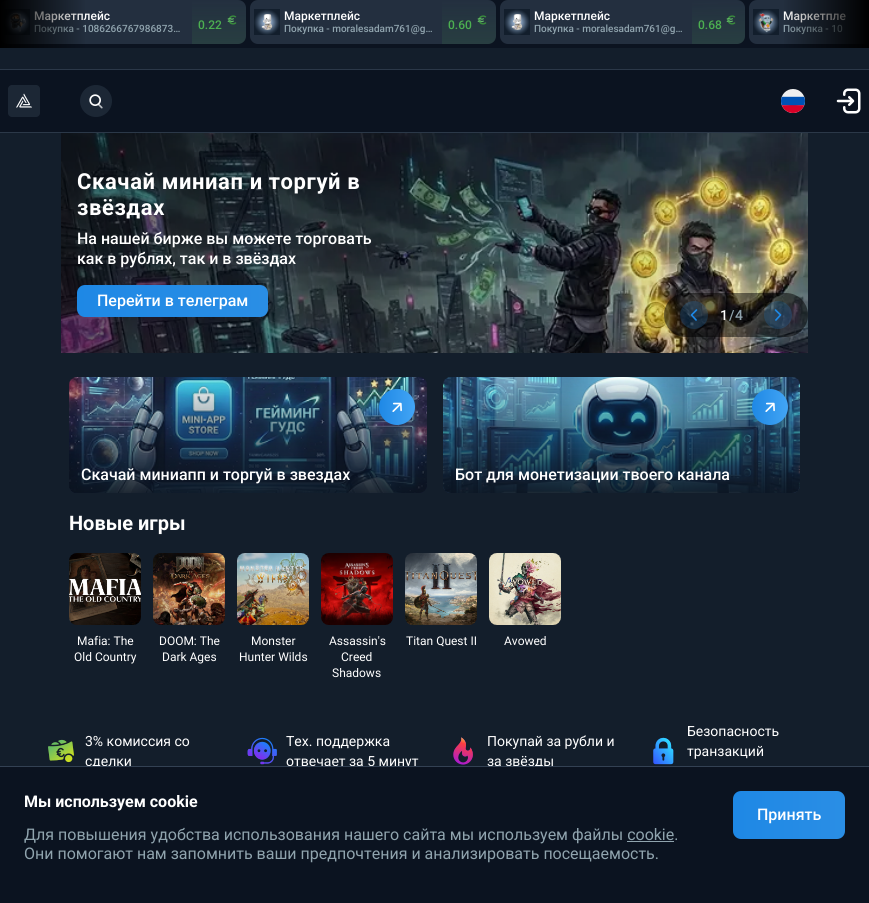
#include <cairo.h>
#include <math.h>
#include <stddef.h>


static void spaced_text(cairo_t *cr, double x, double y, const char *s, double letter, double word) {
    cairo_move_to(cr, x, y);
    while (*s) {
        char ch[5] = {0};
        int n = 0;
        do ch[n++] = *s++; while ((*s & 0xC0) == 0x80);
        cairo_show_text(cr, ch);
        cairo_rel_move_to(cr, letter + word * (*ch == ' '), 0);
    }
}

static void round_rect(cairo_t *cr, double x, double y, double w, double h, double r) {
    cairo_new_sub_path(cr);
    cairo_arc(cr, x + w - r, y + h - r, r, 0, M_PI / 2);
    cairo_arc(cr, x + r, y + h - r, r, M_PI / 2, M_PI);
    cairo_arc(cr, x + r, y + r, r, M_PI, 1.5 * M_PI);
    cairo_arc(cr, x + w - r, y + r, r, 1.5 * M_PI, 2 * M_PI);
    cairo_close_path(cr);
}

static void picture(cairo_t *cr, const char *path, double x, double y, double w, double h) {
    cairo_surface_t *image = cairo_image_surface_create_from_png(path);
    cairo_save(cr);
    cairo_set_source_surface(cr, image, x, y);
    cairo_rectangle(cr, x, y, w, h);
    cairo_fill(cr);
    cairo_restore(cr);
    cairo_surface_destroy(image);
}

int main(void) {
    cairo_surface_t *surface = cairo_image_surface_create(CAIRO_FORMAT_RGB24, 869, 903);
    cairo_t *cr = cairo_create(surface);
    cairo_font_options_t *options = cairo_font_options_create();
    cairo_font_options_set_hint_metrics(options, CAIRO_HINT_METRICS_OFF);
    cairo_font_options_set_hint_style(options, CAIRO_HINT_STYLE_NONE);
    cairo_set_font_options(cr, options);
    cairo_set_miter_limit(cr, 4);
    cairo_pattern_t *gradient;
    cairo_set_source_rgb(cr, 0.078, 0.118, 0.169);
    cairo_paint(cr);
    cairo_set_source_rgb(cr, 0.043, 0.078, 0.125);
    cairo_rectangle(cr, 1, 0, 867, 48);
    cairo_fill(cr);
    cairo_set_source_rgb(cr, 0.137, 0.184, 0.247);
    round_rect(cr, 0, 0, 246, 44, 8);
    cairo_fill(cr);
    picture(cr, "img1.png", 4, 9, 26, 26);
    cairo_select_font_face(cr, "Roboto Medium", CAIRO_FONT_SLANT_NORMAL, CAIRO_FONT_WEIGHT_NORMAL);
    cairo_set_font_size(cr, 12);
    cairo_set_source_rgb(cr, 1, 1, 1);
    cairo_move_to(cr, 34, 20);
    cairo_show_text(cr, "Маркетплейс");
    cairo_set_font_size(cr, 10);
    cairo_set_source_rgb(cr, 0.565, 0.643, 0.682);
    cairo_move_to(cr, 34, 32);
    cairo_show_text(cr, "Покупка - 1086266767986873…");
    gradient = cairo_pattern_create_linear(0, 24, 87, 24);
    cairo_pattern_add_color_stop_rgba(gradient, 0, 0, 0, 0, 1);
    cairo_pattern_add_color_stop_rgba(gradient, 1, 0, 0, 0, 0);
    cairo_set_source(cr, gradient);
    cairo_pattern_destroy(gradient);
    cairo_rectangle(cr, 0, 0, 85, 48);
    cairo_fill(cr);
    cairo_set_source_rgb(cr, 0.137, 0.184, 0.247);
    cairo_new_path(cr);
    cairo_move_to(cr, 757, 0);
    cairo_line_to(cr, 869, 0);
    cairo_line_to(cr, 869, 44);
    cairo_line_to(cr, 757, 44);
    cairo_curve_to(cr, 752.5, 44, 749, 40.5, 749, 36);
    cairo_line_to(cr, 749, 8);
    cairo_curve_to(cr, 749, 3.5, 752.5, 0, 757, 0);
    cairo_close_path(cr);
    cairo_fill(cr);
    cairo_set_font_size(cr, 12);
    cairo_set_source_rgb(cr, 1, 1, 1);
    cairo_move_to(cr, 783, 20);
    cairo_show_text(cr, "Маркетпле");
    cairo_set_font_size(cr, 10);
    cairo_set_source_rgb(cr, 0.565, 0.643, 0.682);
    cairo_move_to(cr, 783, 32);
    cairo_show_text(cr, "Покупка - 10");
    gradient = cairo_pattern_create_linear(782, 24, 869, 24);
    cairo_pattern_add_color_stop_rgba(gradient, 0, 0, 0, 0, 0);
    cairo_pattern_add_color_stop_rgba(gradient, 1, 0, 0, 0, 1);
    cairo_set_source(cr, gradient);
    cairo_pattern_destroy(gradient);
    cairo_rectangle(cr, 784, 0, 85, 48);
    cairo_fill(cr);
    gradient = cairo_pattern_create_linear(219, -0.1, 219, 44);
    cairo_pattern_add_color_stop_rgba(gradient, 0, 0.298, 0.686, 0.314, 0);
    cairo_pattern_add_color_stop_rgba(gradient, 1, 0.298, 0.686, 0.314, 0.12);
    cairo_set_source(cr, gradient);
    cairo_pattern_destroy(gradient);
    cairo_new_path(cr);
    cairo_move_to(cr, 192, 0);
    cairo_line_to(cr, 238, 0);
    cairo_curve_to(cr, 242.5, 0, 246, 3.5, 246, 8);
    cairo_line_to(cr, 246, 36);
    cairo_curve_to(cr, 246, 40.5, 242.5, 44, 238, 44);
    cairo_line_to(cr, 192, 44);
    cairo_close_path(cr);
    cairo_fill(cr);
    cairo_set_font_size(cr, 12);
    cairo_set_source_rgb(cr, 0.298, 0.686, 0.314);
    cairo_move_to(cr, 198, 29);
    cairo_show_text(cr, "0.22");
    picture(cr, "img2.png", 227, 15, 10, 10);
    cairo_set_source_rgb(cr, 0.137, 0.184, 0.247);
    round_rect(cr, 250, 0, 246, 44, 8);
    cairo_fill(cr);
    picture(cr, "img3.png", 254, 9, 26, 26);
    cairo_set_source_rgb(cr, 1, 1, 1);
    cairo_move_to(cr, 284, 20);
    cairo_show_text(cr, "Маркетплейс");
    cairo_set_font_size(cr, 10);
    cairo_set_source_rgb(cr, 0.565, 0.643, 0.682);
    cairo_move_to(cr, 284, 32);
    cairo_show_text(cr, "Покупка - moralesadam761@g…");
    gradient = cairo_pattern_create_linear(469, -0.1, 469, 44);
    cairo_pattern_add_color_stop_rgba(gradient, 0, 0.298, 0.686, 0.314, 0);
    cairo_pattern_add_color_stop_rgba(gradient, 1, 0.298, 0.686, 0.314, 0.12);
    cairo_set_source(cr, gradient);
    cairo_pattern_destroy(gradient);
    cairo_new_path(cr);
    cairo_move_to(cr, 442, 0);
    cairo_line_to(cr, 488, 0);
    cairo_curve_to(cr, 492.5, 0, 496, 3.5, 496, 8);
    cairo_line_to(cr, 496, 36);
    cairo_curve_to(cr, 496, 40.5, 492.5, 44, 488, 44);
    cairo_line_to(cr, 442, 44);
    cairo_close_path(cr);
    cairo_fill(cr);
    cairo_set_font_size(cr, 12);
    cairo_set_source_rgb(cr, 0.298, 0.686, 0.314);
    cairo_move_to(cr, 448, 29);
    cairo_show_text(cr, "0.60");
    picture(cr, "img2.png", 477, 15, 10, 10);
    cairo_set_source_rgb(cr, 0.137, 0.184, 0.247);
    round_rect(cr, 500, 0, 245, 44, 8);
    cairo_fill(cr);
    picture(cr, "img4.png", 504, 9, 26, 26);
    cairo_set_source_rgb(cr, 1, 1, 1);
    cairo_move_to(cr, 534, 20);
    cairo_show_text(cr, "Маркетплейс");
    cairo_set_font_size(cr, 10);
    cairo_set_source_rgb(cr, 0.565, 0.643, 0.682);
    cairo_move_to(cr, 534, 32);
    cairo_show_text(cr, "Покупка - moralesadam761@g…");
    gradient = cairo_pattern_create_linear(718, -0.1, 719, 44);
    cairo_pattern_add_color_stop_rgba(gradient, 0, 0.298, 0.686, 0.314, 0);
    cairo_pattern_add_color_stop_rgba(gradient, 1, 0.298, 0.686, 0.314, 0.12);
    cairo_set_source(cr, gradient);
    cairo_pattern_destroy(gradient);
    cairo_new_path(cr);
    cairo_move_to(cr, 692, 0);
    cairo_line_to(cr, 737, 0);
    cairo_curve_to(cr, 741.5, 0, 745, 3.5, 745, 8);
    cairo_line_to(cr, 745, 36);
    cairo_curve_to(cr, 745, 40.5, 741.5, 44, 737, 44);
    cairo_line_to(cr, 692, 44);
    cairo_close_path(cr);
    cairo_fill(cr);
    cairo_set_font_size(cr, 12);
    cairo_set_source_rgb(cr, 0.298, 0.686, 0.314);
    cairo_move_to(cr, 698, 29);
    cairo_show_text(cr, "0.68");
    picture(cr, "img5.png", 726, 15, 10, 10);
    picture(cr, "img6.png", 753, 9, 26, 26);
    cairo_set_source_rgb(cr, 0.043, 0.078, 0.125);
    cairo_rectangle(cr, 0, 70, 869, 62);
    cairo_fill(cr);
    cairo_set_source_rgb(cr, 0.169, 0.22, 0.282);
    cairo_rectangle(cr, 0, 69, 869, 1);
    cairo_fill(cr);
    cairo_rectangle(cr, 0, 132, 869, 1);
    cairo_fill(cr);
    picture(cr, "img7.png", 8, 85, 32, 32);
    cairo_set_source_rgb(cr, 0.11, 0.153, 0.208);
    cairo_arc(cr, 96, 101, 16, 0, 2 * M_PI);
    cairo_fill(cr);
    picture(cr, "img8.png", 89, 94, 14, 15);
    picture(cr, "img9.png", 781, 89, 24, 24);
    picture(cr, "img10.png", 836, 88, 25, 26);
    picture(cr, "img11.png", 61, 133, 747, 220);
    cairo_select_font_face(cr, "Roboto", CAIRO_FONT_SLANT_NORMAL, CAIRO_FONT_WEIGHT_BOLD);
    cairo_set_font_size(cr, 22);
    cairo_set_source_rgb(cr, 1, 1, 1);
    spaced_text(cr, 77, 189, "Скачай миниап и торгуй в", 0.6, 0);
    spaced_text(cr, 77, 215, "звёздах", 0.6, 0);
    cairo_select_font_face(cr, "Roboto Medium", CAIRO_FONT_SLANT_NORMAL, CAIRO_FONT_WEIGHT_NORMAL);
    cairo_set_font_size(cr, 16);
    cairo_move_to(cr, 77, 244);
    cairo_show_text(cr, "На нашей бирже вы можете торговать");
    cairo_move_to(cr, 77, 264);
    cairo_show_text(cr, "как в рублях, так и в звёздах");
    gradient = cairo_pattern_create_linear(77, 301, 268, 301);
    cairo_pattern_add_color_stop_rgba(gradient, 0, 0.118, 0.533, 0.898, 1);
    cairo_pattern_add_color_stop_rgba(gradient, 1, 0.165, 0.557, 0.898, 1);
    cairo_set_source(cr, gradient);
    cairo_pattern_destroy(gradient);
    round_rect(cr, 77, 285, 191, 32, 8);
    cairo_fill(cr);
    cairo_set_source_rgb(cr, 1, 1, 1);
    cairo_move_to(cr, 97, 306);
    cairo_show_text(cr, "Перейти в телеграм");
    cairo_set_source_rgba(cr, 0, 0, 0, 0.5);
    round_rect(cr, 664, 293, 144, 44, 22);
    cairo_fill(cr);
    cairo_set_source_rgba(cr, 0.118, 0.533, 0.898, 0.2);
    cairo_arc(cr, 694, 315, 14, 0, 2 * M_PI);
    cairo_fill(cr);
    picture(cr, "img12.png", 690, 309, 8, 12);
    cairo_set_font_size(cr, 14);
    cairo_set_source_rgb(cr, 1, 1, 1);
    cairo_move_to(cr, 720, 320);
    cairo_show_text(cr, "1");
    cairo_set_source_rgb(cr, 0.565, 0.643, 0.682);
    cairo_move_to(cr, 729, 320);
    cairo_show_text(cr, "/");
    cairo_move_to(cr, 735, 320);
    cairo_show_text(cr, "4");
    cairo_set_source_rgba(cr, 0.118, 0.533, 0.898, 0.2);
    cairo_new_path(cr);
    cairo_arc(cr, 778, 315, 14, 0, 2 * M_PI);
    cairo_fill(cr);
    picture(cr, "img13.png", 774, 309, 8, 12);
    picture(cr, "img14.png", 69, 377, 358, 116);
    gradient = cairo_pattern_create_linear(248, 493, 248, 377);
    cairo_pattern_add_color_stop_rgba(gradient, 0, 0.043, 0.078, 0.125, 0.9);
    cairo_pattern_add_color_stop_rgba(gradient, 1, 0.043, 0.078, 0.125, 0);
    cairo_set_source(cr, gradient);
    cairo_pattern_destroy(gradient);
    round_rect(cr, 69, 377, 358, 116, 8);
    cairo_fill(cr);
    gradient = cairo_pattern_create_linear(379, 407, 415, 407);
    cairo_pattern_add_color_stop_rgba(gradient, 0, 0.118, 0.533, 0.898, 1);
    cairo_pattern_add_color_stop_rgba(gradient, 1, 0.259, 0.647, 0.961, 1);
    cairo_set_source(cr, gradient);
    cairo_pattern_destroy(gradient);
    cairo_arc(cr, 397, 407, 18, 0, 2 * M_PI);
    cairo_fill(cr);
    picture(cr, "img15.png", 392, 402, 10, 10);
    cairo_set_font_size(cr, 16);
    cairo_set_source_rgb(cr, 1, 1, 1);
    cairo_move_to(cr, 81, 480);
    cairo_show_text(cr, "Скачай миниапп и торгуй в звездах");
    picture(cr, "img16.png", 443, 377, 357, 116);
    gradient = cairo_pattern_create_linear(622, 493, 622, 377);
    cairo_pattern_add_color_stop_rgba(gradient, 0, 0.043, 0.078, 0.125, 0.9);
    cairo_pattern_add_color_stop_rgba(gradient, 1, 0.043, 0.078, 0.125, 0);
    cairo_set_source(cr, gradient);
    cairo_pattern_destroy(gradient);
    round_rect(cr, 443, 377, 357, 116, 8);
    cairo_fill(cr);
    gradient = cairo_pattern_create_linear(752, 407, 788, 407);
    cairo_pattern_add_color_stop_rgba(gradient, 0, 0.118, 0.533, 0.898, 1);
    cairo_pattern_add_color_stop_rgba(gradient, 1, 0.259, 0.647, 0.961, 1);
    cairo_set_source(cr, gradient);
    cairo_pattern_destroy(gradient);
    cairo_arc(cr, 770, 407, 18, 0, 2 * M_PI);
    cairo_fill(cr);
    picture(cr, "img15.png", 765, 402, 10, 10);
    cairo_set_source_rgb(cr, 1, 1, 1);
    cairo_move_to(cr, 455, 480);
    cairo_show_text(cr, "Бот для монетизации твоего канала");
    cairo_select_font_face(cr, "Roboto", CAIRO_FONT_SLANT_NORMAL, CAIRO_FONT_WEIGHT_BOLD);
    cairo_set_font_size(cr, 20);
    cairo_move_to(cr, 69, 530);
    cairo_show_text(cr, "Новые игры");
    picture(cr, "img17.png", 69, 553, 72, 72);
    cairo_select_font_face(cr, "Roboto", CAIRO_FONT_SLANT_NORMAL, CAIRO_FONT_WEIGHT_NORMAL);
    cairo_set_font_size(cr, 12);
    cairo_move_to(cr, 77, 645);
    cairo_show_text(cr, "Mafia: The");
    cairo_move_to(cr, 74, 661);
    cairo_show_text(cr, "Old Country");
    picture(cr, "img18.png", 153, 553, 72, 72);
    cairo_move_to(cr, 159, 645);
    cairo_show_text(cr, "DOOM: The");
    cairo_move_to(cr, 162, 661);
    cairo_show_text(cr, "Dark Ages");
    picture(cr, "img19.png", 237, 553, 72, 72);
    cairo_move_to(cr, 251, 645);
    cairo_show_text(cr, "Monster");
    cairo_move_to(cr, 239, 661);
    cairo_show_text(cr, "Hunter Wilds");
    picture(cr, "img20.png", 321, 553, 72, 72);
    cairo_move_to(cr, 329, 645);
    cairo_show_text(cr, "Assassin's");
    cairo_move_to(cr, 341, 661);
    cairo_show_text(cr, "Creed");
    cairo_move_to(cr, 332, 677);
    cairo_show_text(cr, "Shadows");
    picture(cr, "img21.png", 405, 553, 72, 72);
    cairo_move_to(cr, 406, 645);
    cairo_show_text(cr, "Titan Quest II");
    picture(cr, "img22.png", 489, 553, 72, 72);
    cairo_move_to(cr, 504, 645);
    cairo_show_text(cr, "Avowed");
    picture(cr, "img23.png", 48, 739, 26, 24);
    cairo_set_font_size(cr, 14);
    cairo_move_to(cr, 85, 746);
    cairo_show_text(cr, "3% комиссия со");
    cairo_move_to(cr, 85, 766);
    cairo_show_text(cr, "сделки");
    picture(cr, "img24.png", 247, 737, 30, 28);
    cairo_move_to(cr, 286, 746);
    cairo_show_text(cr, "Тех. поддержка");
    cairo_move_to(cr, 286, 766);
    cairo_show_text(cr, "отвечает за 5 минут");
    picture(cr, "img25.png", 453, 737, 20, 28);
    cairo_move_to(cr, 487, 746);
    cairo_show_text(cr, "Покупай за рубли и");
    cairo_move_to(cr, 487, 766);
    cairo_show_text(cr, "за звёзды");
    picture(cr, "img26.png", 653, 737, 21, 28);
    cairo_move_to(cr, 687, 736);
    cairo_show_text(cr, "Безопасность");
    cairo_move_to(cr, 687, 756);
    cairo_show_text(cr, "транзакций");
    cairo_set_source_rgb(cr, 0.043, 0.078, 0.125);
    cairo_rectangle(cr, 0, 767, 869, 136);
    cairo_fill(cr);
    cairo_set_source_rgb(cr, 0.2, 0.255, 0.325);
    cairo_rectangle(cr, 0, 766, 869, 1);
    cairo_fill(cr);
    cairo_select_font_face(cr, "Roboto", CAIRO_FONT_SLANT_NORMAL, CAIRO_FONT_WEIGHT_BOLD);
    cairo_set_font_size(cr, 16);
    cairo_set_source_rgb(cr, 1, 1, 1);
    cairo_move_to(cr, 24, 807);
    cairo_show_text(cr, "Мы используем cookie");
    cairo_select_font_face(cr, "Roboto", CAIRO_FONT_SLANT_NORMAL, CAIRO_FONT_WEIGHT_NORMAL);
    cairo_set_source_rgb(cr, 0.565, 0.643, 0.682);
    cairo_move_to(cr, 24, 840);
    cairo_show_text(cr, "Для повышения удобства использования нашего сайта мы используем файлы cookie.");
    cairo_rectangle(cr, 627, 841, 47, 1);
    cairo_fill(cr);
    cairo_move_to(cr, 24, 859);
    cairo_show_text(cr, "Они помогают нам запомнить ваши предпочтения и анализировать посещаемость.");
    gradient = cairo_pattern_create_linear(733, 815, 845, 815);
    cairo_pattern_add_color_stop_rgba(gradient, 0, 0.118, 0.533, 0.898, 1);
    cairo_pattern_add_color_stop_rgba(gradient, 1, 0.165, 0.557, 0.898, 1);
    cairo_set_source(cr, gradient);
    cairo_pattern_destroy(gradient);
    round_rect(cr, 733, 791, 112, 48, 8);
    cairo_fill(cr);
    cairo_select_font_face(cr, "Roboto Medium", CAIRO_FONT_SLANT_NORMAL, CAIRO_FONT_WEIGHT_NORMAL);
    cairo_set_source_rgb(cr, 1, 1, 1);
    cairo_move_to(cr, 757, 820);
    cairo_show_text(cr, "Принять");
    cairo_surface_write_to_png(surface, "page.png");
    cairo_font_options_destroy(options);
    cairo_destroy(cr);
    cairo_surface_destroy(surface);
    return 0;
}
